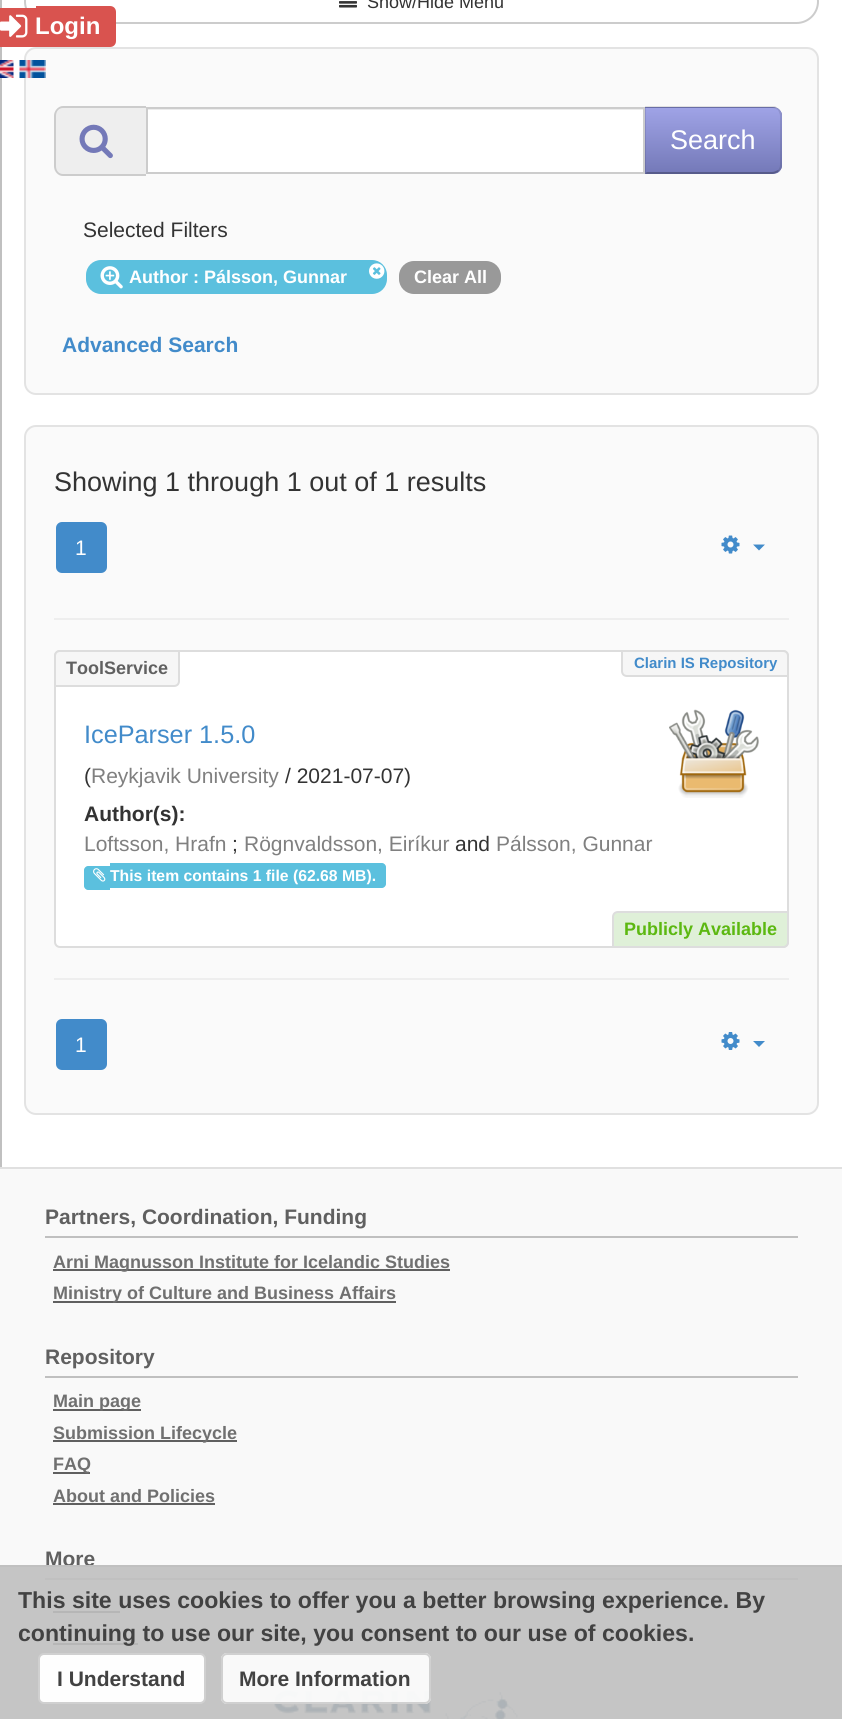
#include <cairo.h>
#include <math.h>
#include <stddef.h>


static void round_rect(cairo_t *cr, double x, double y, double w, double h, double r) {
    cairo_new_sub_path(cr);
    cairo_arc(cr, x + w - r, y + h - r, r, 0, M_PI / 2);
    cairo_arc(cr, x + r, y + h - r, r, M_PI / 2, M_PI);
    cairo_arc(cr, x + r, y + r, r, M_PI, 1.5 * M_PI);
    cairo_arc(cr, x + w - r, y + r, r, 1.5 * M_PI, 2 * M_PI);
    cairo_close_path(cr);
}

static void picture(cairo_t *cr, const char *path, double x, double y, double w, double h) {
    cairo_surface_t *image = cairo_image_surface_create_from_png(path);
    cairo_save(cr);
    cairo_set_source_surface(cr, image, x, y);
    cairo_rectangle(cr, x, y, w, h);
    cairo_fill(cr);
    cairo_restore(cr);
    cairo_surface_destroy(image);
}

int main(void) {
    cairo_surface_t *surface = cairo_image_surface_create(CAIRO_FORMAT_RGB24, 842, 1719);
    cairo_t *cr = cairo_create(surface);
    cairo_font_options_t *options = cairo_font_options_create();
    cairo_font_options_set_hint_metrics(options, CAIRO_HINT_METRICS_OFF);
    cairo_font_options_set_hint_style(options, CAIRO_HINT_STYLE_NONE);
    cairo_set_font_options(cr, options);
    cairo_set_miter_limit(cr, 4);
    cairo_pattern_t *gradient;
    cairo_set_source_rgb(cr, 1, 1, 1);
    cairo_paint(cr);
    cairo_set_source_rgb(cr, 0.753, 0.753, 0.753);
    cairo_rectangle(cr, 0, 0, 2, 1167);
    cairo_fill(cr);
    round_rect(cr, 25, -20, 793, 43, 21.5);
    cairo_set_source_rgb(cr, 0.8, 0.8, 0.8);
    cairo_stroke(cr);
    picture(cr, "img1.png", 339, 1, 18, 7);
    cairo_select_font_face(cr, "Liberation Sans", CAIRO_FONT_SLANT_NORMAL, CAIRO_FONT_WEIGHT_NORMAL);
    cairo_set_font_size(cr, 18);
    cairo_set_source_rgb(cr, 0.2, 0.2, 0.2);
    cairo_move_to(cr, 367, 8);
    cairo_show_text(cr, "Show/Hide Menu");
    cairo_set_source_rgb(cr, 0.98, 0.98, 0.98);
    round_rect(cr, 25, 48, 793, 346, 11);
    cairo_fill_preserve(cr);
    cairo_set_source_rgb(cr, 0.89, 0.89, 0.89);
    cairo_stroke(cr);
    cairo_set_source_rgb(cr, 0.933, 0.933, 0.933);
    cairo_new_path(cr);
    cairo_move_to(cr, 63, 107);
    cairo_line_to(cr, 146, 107);
    cairo_line_to(cr, 146, 176);
    cairo_line_to(cr, 63, 176);
    cairo_curve_to(cr, 58, 176, 54, 172, 54, 167);
    cairo_line_to(cr, 54, 116);
    cairo_curve_to(cr, 54, 111, 58, 107, 63, 107);
    cairo_close_path(cr);
    cairo_fill(cr);
    cairo_set_source_rgb(cr, 0.8, 0.8, 0.8);
    cairo_set_fill_rule(cr, CAIRO_FILL_RULE_EVEN_ODD);
    cairo_new_path(cr);
    cairo_move_to(cr, 63, 106);
    cairo_line_to(cr, 146, 106);
    cairo_line_to(cr, 146, 176);
    cairo_line_to(cr, 63, 176);
    cairo_curve_to(cr, 58, 176, 54, 171, 54, 166);
    cairo_line_to(cr, 54, 116);
    cairo_curve_to(cr, 54, 111, 58, 106, 63, 106);
    cairo_close_path(cr);
    cairo_move_to(cr, 63, 108);
    cairo_line_to(cr, 146, 108);
    cairo_line_to(cr, 146, 174);
    cairo_line_to(cr, 63, 174);
    cairo_curve_to(cr, 59, 174, 56, 171, 56, 166);
    cairo_line_to(cr, 56, 116);
    cairo_curve_to(cr, 56, 111, 59, 108, 63, 108);
    cairo_close_path(cr);
    cairo_fill(cr);
    picture(cr, "img2.png", 79, 124, 34, 35);
    cairo_set_source_rgb(cr, 1, 1, 1);
    cairo_rectangle(cr, 148, 110, 495, 62);
    cairo_fill(cr);
    cairo_set_source_rgb(cr, 0.925, 0.925, 0.925);
    cairo_rectangle(cr, 147, 109, 497, 1);
    cairo_fill(cr);
    cairo_rectangle(cr, 147, 108, 497, 65);
    cairo_set_source_rgb(cr, 0.8, 0.8, 0.8);
    cairo_stroke(cr);
    cairo_set_source_rgb(cr, 0.455, 0.475, 0.722);
    cairo_new_path(cr);
    cairo_move_to(cr, 645, 107);
    cairo_line_to(cr, 773, 107);
    cairo_curve_to(cr, 778, 107, 782, 111, 782, 116);
    cairo_line_to(cr, 782, 165);
    cairo_curve_to(cr, 782, 170, 778, 174, 773, 174);
    cairo_line_to(cr, 645, 174);
    cairo_close_path(cr);
    cairo_fill(cr);
    cairo_save(cr);
    cairo_set_fill_rule(cr, CAIRO_FILL_RULE_WINDING);
    cairo_new_path(cr);
    cairo_move_to(cr, 645, 107);
    cairo_line_to(cr, 773, 107);
    cairo_curve_to(cr, 778, 107, 782, 111, 782, 116);
    cairo_line_to(cr, 782, 165);
    cairo_curve_to(cr, 782, 170, 778, 174, 773, 174);
    cairo_line_to(cr, 645, 174);
    cairo_close_path(cr);
    cairo_clip(cr);
    gradient = cairo_pattern_create_linear(713, 108, 713, 173);
    cairo_pattern_add_color_stop_rgba(gradient, 0, 0.624, 0.639, 0.902, 1);
    cairo_pattern_add_color_stop_rgba(gradient, 1, 0.455, 0.475, 0.722, 1);
    cairo_set_source(cr, gradient);
    cairo_pattern_destroy(gradient);
    cairo_rectangle(cr, 645, 108, 137, 65);
    cairo_fill(cr);
    cairo_restore(cr);
    cairo_set_source_rgba(cr, 0, 0, 0, 0.1);
    cairo_set_fill_rule(cr, CAIRO_FILL_RULE_WINDING);
    cairo_new_path(cr);
    cairo_move_to(cr, 645, 106);
    cairo_line_to(cr, 775, 106);
    cairo_line_to(cr, 779, 109);
    cairo_line_to(cr, 778, 110);
    cairo_curve_to(cr, 776, 109, 774, 108, 772, 108);
    cairo_line_to(cr, 646, 108);
    cairo_close_path(cr);
    cairo_fill(cr);
    cairo_new_path(cr);
    cairo_move_to(cr, 782, 168);
    cairo_line_to(cr, 779, 171);
    cairo_line_to(cr, 778, 170);
    cairo_curve_to(cr, 779, 169, 780, 167, 780, 165);
    cairo_line_to(cr, 780, 116);
    cairo_curve_to(cr, 780, 114, 779, 112, 778, 110);
    cairo_line_to(cr, 779, 109);
    cairo_line_to(cr, 782, 113);
    cairo_close_path(cr);
    cairo_fill(cr);
    cairo_set_source_rgba(cr, 0, 0, 0, 0.25);
    cairo_new_path(cr);
    cairo_move_to(cr, 772, 174);
    cairo_curve_to(cr, 774, 174, 777, 173, 779, 171);
    cairo_line_to(cr, 778, 170);
    cairo_curve_to(cr, 776, 171, 774, 172, 772, 172);
    cairo_line_to(cr, 647, 172);
    cairo_line_to(cr, 645, 174);
    cairo_close_path(cr);
    cairo_fill(cr);
    cairo_set_source_rgba(cr, 0, 0, 0, 0.1);
    cairo_new_path(cr);
    cairo_move_to(cr, 646, 108);
    cairo_line_to(cr, 645, 106);
    cairo_line_to(cr, 645, 174);
    cairo_line_to(cr, 647, 172);
    cairo_line_to(cr, 646, 172);
    cairo_close_path(cr);
    cairo_fill(cr);
    cairo_set_font_size(cr, 27);
    cairo_set_source_rgb(cr, 1, 1, 1);
    cairo_move_to(cr, 670, 149);
    cairo_show_text(cr, "Search");
    cairo_set_font_size(cr, 21);
    cairo_set_source_rgb(cr, 0.2, 0.2, 0.2);
    cairo_move_to(cr, 83, 237);
    cairo_show_text(cr, "Selected Filters");
    cairo_set_source_rgb(cr, 0.357, 0.753, 0.871);
    round_rect(cr, 86, 260, 301, 34, 15);
    cairo_fill(cr);
    picture(cr, "img3.png", 100, 266, 23, 23);
    cairo_select_font_face(cr, "Liberation Sans", CAIRO_FONT_SLANT_NORMAL, CAIRO_FONT_WEIGHT_BOLD);
    cairo_set_font_size(cr, 18);
    cairo_set_source_rgb(cr, 1, 1, 1);
    cairo_move_to(cr, 129, 283);
    cairo_show_text(cr, "Author : Pálsson, Gunnar");
    picture(cr, "img4.png", 369, 263, 16, 16);
    cairo_set_source_rgb(cr, 0.6, 0.6, 0.6);
    round_rect(cr, 399, 261, 102, 33, 15);
    cairo_fill(cr);
    cairo_set_source_rgb(cr, 1, 1, 1);
    cairo_move_to(cr, 414, 283);
    cairo_show_text(cr, "Clear All");
    cairo_set_font_size(cr, 21);
    cairo_set_source_rgb(cr, 0.259, 0.545, 0.792);
    cairo_move_to(cr, 62, 352);
    cairo_show_text(cr, "Advanced Search");
    cairo_set_source_rgb(cr, 0.98, 0.98, 0.98);
    round_rect(cr, 25, 426, 793, 688, 11);
    cairo_fill_preserve(cr);
    cairo_set_source_rgb(cr, 0.89, 0.89, 0.89);
    cairo_stroke(cr);
    cairo_select_font_face(cr, "Liberation Sans", CAIRO_FONT_SLANT_NORMAL, CAIRO_FONT_WEIGHT_NORMAL);
    cairo_set_font_size(cr, 27);
    cairo_set_source_rgb(cr, 0.2, 0.2, 0.2);
    cairo_move_to(cr, 54, 491);
    cairo_show_text(cr, "Showing 1 through 1 out of 1 results");
    cairo_set_source_rgb(cr, 0.259, 0.545, 0.792);
    round_rect(cr, 57, 523, 49, 49, 5);
    cairo_fill_preserve(cr);
    cairo_stroke(cr);
    cairo_set_font_size(cr, 21);
    cairo_set_source_rgb(cr, 1, 1, 1);
    cairo_move_to(cr, 75, 555);
    cairo_show_text(cr, "1");
    picture(cr, "img5.png", 721, 535, 19, 19);
    cairo_set_source_rgb(cr, 0.259, 0.545, 0.792);
    cairo_new_path(cr);
    cairo_move_to(cr, 753, 544.5);
    cairo_line_to(cr, 765, 544.5);
    cairo_line_to(cr, 759, 550.5);
    cairo_close_path(cr);
    cairo_fill(cr);
    cairo_set_source_rgb(cr, 0.933, 0.933, 0.933);
    cairo_rectangle(cr, 54, 618, 735, 2);
    cairo_fill(cr);
    cairo_set_source_rgb(cr, 1, 1, 1);
    round_rect(cr, 55, 651, 733, 296, 5);
    cairo_fill_preserve(cr);
    cairo_set_source_rgb(cr, 0.867, 0.867, 0.867);
    cairo_stroke(cr);
    cairo_set_source_rgb(cr, 0.961, 0.961, 0.961);
    cairo_new_path(cr);
    cairo_move_to(cr, 60, 651);
    cairo_line_to(cr, 179, 651);
    cairo_line_to(cr, 179, 681);
    cairo_curve_to(cr, 179, 684, 177, 686, 174, 686);
    cairo_line_to(cr, 55, 686);
    cairo_line_to(cr, 55, 656);
    cairo_curve_to(cr, 55, 653, 57, 651, 60, 651);
    cairo_close_path(cr);
    cairo_fill_preserve(cr);
    cairo_set_source_rgb(cr, 0.867, 0.867, 0.867);
    cairo_stroke(cr);
    cairo_select_font_face(cr, "Liberation Sans", CAIRO_FONT_SLANT_NORMAL, CAIRO_FONT_WEIGHT_BOLD);
    cairo_set_font_size(cr, 18);
    cairo_set_source_rgb(cr, 0.376, 0.376, 0.376);
    cairo_move_to(cr, 66, 674);
    cairo_show_text(cr, "ToolService");
    cairo_set_source_rgb(cr, 0.961, 0.961, 0.961);
    cairo_new_path(cr);
    cairo_move_to(cr, 622, 651);
    cairo_line_to(cr, 783, 651);
    cairo_curve_to(cr, 786, 651, 788, 653, 788, 656);
    cairo_line_to(cr, 788, 676);
    cairo_line_to(cr, 627, 676);
    cairo_curve_to(cr, 624, 676, 622, 674, 622, 671);
    cairo_close_path(cr);
    cairo_fill_preserve(cr);
    cairo_set_source_rgb(cr, 0.867, 0.867, 0.867);
    cairo_stroke(cr);
    cairo_set_font_size(cr, 15);
    cairo_set_source_rgb(cr, 0.259, 0.545, 0.792);
    cairo_move_to(cr, 634, 668);
    cairo_show_text(cr, "Clarin IS Repository");
    cairo_select_font_face(cr, "Liberation Sans", CAIRO_FONT_SLANT_NORMAL, CAIRO_FONT_WEIGHT_NORMAL);
    cairo_set_font_size(cr, 25.25);
    cairo_move_to(cr, 84, 743);
    cairo_show_text(cr, "IceParser 1.5.0");
    picture(cr, "img6.png", 669, 709, 90, 89);
    cairo_set_font_size(cr, 21);
    cairo_set_source_rgb(cr, 0.2, 0.2, 0.2);
    cairo_move_to(cr, 84, 783);
    cairo_show_text(cr, "(");
    cairo_set_source_rgb(cr, 0.502, 0.502, 0.502);
    cairo_move_to(cr, 91, 783);
    cairo_show_text(cr, "Reykjavik University");
    cairo_set_source_rgb(cr, 0.2, 0.2, 0.2);
    cairo_move_to(cr, 285, 783);
    cairo_show_text(cr, "/ 2021-07-07)");
    cairo_select_font_face(cr, "Liberation Sans", CAIRO_FONT_SLANT_NORMAL, CAIRO_FONT_WEIGHT_BOLD);
    cairo_move_to(cr, 84, 821);
    cairo_show_text(cr, "Author(s):");
    cairo_select_font_face(cr, "Liberation Sans", CAIRO_FONT_SLANT_NORMAL, CAIRO_FONT_WEIGHT_NORMAL);
    cairo_set_source_rgb(cr, 0.502, 0.502, 0.502);
    cairo_move_to(cr, 84, 851);
    cairo_show_text(cr, "Loftsson, Hrafn");
    cairo_set_source_rgb(cr, 0.2, 0.2, 0.2);
    cairo_move_to(cr, 232, 851);
    cairo_show_text(cr, ";");
    cairo_set_source_rgb(cr, 0.502, 0.502, 0.502);
    cairo_move_to(cr, 244, 851);
    cairo_show_text(cr, "Rögnvaldsson, Eiríkur");
    cairo_set_source_rgb(cr, 0.2, 0.2, 0.2);
    cairo_move_to(cr, 455, 851);
    cairo_show_text(cr, "and");
    cairo_set_source_rgb(cr, 0.502, 0.502, 0.502);
    cairo_move_to(cr, 496, 851);
    cairo_show_text(cr, "Pálsson, Gunnar");
    cairo_set_source_rgb(cr, 0.357, 0.753, 0.871);
    cairo_new_path(cr);
    cairo_move_to(cr, 88, 866);
    cairo_line_to(cr, 110, 866);
    cairo_line_to(cr, 110, 890);
    cairo_line_to(cr, 88, 890);
    cairo_curve_to(cr, 86, 890, 84, 888, 84, 886);
    cairo_line_to(cr, 84, 870);
    cairo_curve_to(cr, 84, 868, 86, 866, 88, 866);
    cairo_close_path(cr);
    cairo_fill(cr);
    cairo_new_path(cr);
    cairo_move_to(cr, 110, 863);
    cairo_line_to(cr, 382, 863);
    cairo_curve_to(cr, 384, 863, 386, 865, 386, 867);
    cairo_line_to(cr, 386, 884);
    cairo_curve_to(cr, 386, 886, 384, 888, 382, 888);
    cairo_line_to(cr, 110, 888);
    cairo_close_path(cr);
    cairo_fill(cr);
    picture(cr, "img7.png", 93, 868, 13, 14);
    cairo_select_font_face(cr, "Liberation Sans", CAIRO_FONT_SLANT_NORMAL, CAIRO_FONT_WEIGHT_BOLD);
    cairo_set_font_size(cr, 15.75);
    cairo_set_source_rgb(cr, 1, 1, 1);
    cairo_move_to(cr, 110, 881);
    cairo_show_text(cr, "This item contains 1 file (62.68 MB).");
    cairo_set_source_rgb(cr, 0.875, 0.941, 0.847);
    cairo_new_path(cr);
    cairo_move_to(cr, 618, 912);
    cairo_line_to(cr, 788, 912);
    cairo_line_to(cr, 788, 942);
    cairo_curve_to(cr, 788, 945, 786, 947, 783, 947);
    cairo_line_to(cr, 613, 947);
    cairo_line_to(cr, 613, 917);
    cairo_curve_to(cr, 613, 914, 615, 912, 618, 912);
    cairo_close_path(cr);
    cairo_fill_preserve(cr);
    cairo_set_source_rgb(cr, 0.867, 0.867, 0.867);
    cairo_stroke(cr);
    cairo_set_font_size(cr, 18);
    cairo_set_source_rgb(cr, 0.361, 0.722, 0.067);
    cairo_move_to(cr, 624, 935);
    cairo_show_text(cr, "Publicly Available");
    cairo_set_source_rgb(cr, 0.933, 0.933, 0.933);
    cairo_rectangle(cr, 54, 978, 735, 2);
    cairo_fill(cr);
    cairo_set_source_rgb(cr, 0.259, 0.545, 0.792);
    round_rect(cr, 57, 1020, 49, 49, 5);
    cairo_fill_preserve(cr);
    cairo_stroke(cr);
    cairo_select_font_face(cr, "Liberation Sans", CAIRO_FONT_SLANT_NORMAL, CAIRO_FONT_WEIGHT_NORMAL);
    cairo_set_font_size(cr, 21);
    cairo_set_source_rgb(cr, 1, 1, 1);
    cairo_move_to(cr, 75, 1052);
    cairo_show_text(cr, "1");
    picture(cr, "img8.png", 721, 1032, 19, 18);
    cairo_set_source_rgb(cr, 0.259, 0.545, 0.792);
    cairo_new_path(cr);
    cairo_move_to(cr, 753, 1041);
    cairo_line_to(cr, 765, 1041);
    cairo_line_to(cr, 759, 1047);
    cairo_close_path(cr);
    cairo_fill(cr);
    cairo_set_source_rgb(cr, 0.851, 0.325, 0.31);
    cairo_rectangle(cr, 0, 8, 36, 39);
    cairo_fill(cr);
    cairo_new_path(cr);
    cairo_move_to(cr, 36, 6);
    cairo_line_to(cr, 110, 6);
    cairo_curve_to(cr, 113.5, 6, 116, 8.5, 116, 12);
    cairo_line_to(cr, 116, 41);
    cairo_curve_to(cr, 116, 44.5, 113.5, 47, 110, 47);
    cairo_line_to(cr, 36, 47);
    cairo_close_path(cr);
    cairo_fill(cr);
    picture(cr, "img9.png", 0, 14, 28, 24);
    cairo_select_font_face(cr, "Liberation Sans", CAIRO_FONT_SLANT_NORMAL, CAIRO_FONT_WEIGHT_BOLD);
    cairo_set_font_size(cr, 24);
    cairo_set_source_rgb(cr, 1, 1, 1);
    cairo_move_to(cr, 35, 34);
    cairo_show_text(cr, "Login");
    picture(cr, "img10.png", 0, 60, 14, 18);
    picture(cr, "img11.png", 19, 60, 27, 18);
    cairo_set_source_rgb(cr, 0.973, 0.973, 0.973);
    cairo_rectangle(cr, 0, 1169, 842, 550);
    cairo_fill(cr);
    cairo_set_source_rgb(cr, 0.878, 0.878, 0.878);
    cairo_rectangle(cr, 0, 1167, 842, 2);
    cairo_fill(cr);
    cairo_set_source_rgb(cr, 0.753, 0.753, 0.753);
    cairo_rectangle(cr, 45, 1236, 753, 2);
    cairo_fill(cr);
    cairo_set_font_size(cr, 21);
    cairo_set_source_rgb(cr, 0.376, 0.376, 0.376);
    cairo_move_to(cr, 45, 1224);
    cairo_show_text(cr, "Partners, Coordination, Funding");
    cairo_rectangle(cr, 53, 1269, 397, 2);
    cairo_fill(cr);
    cairo_set_font_size(cr, 18);
    cairo_set_source_rgb(cr, 0.439, 0.439, 0.439);
    cairo_move_to(cr, 53, 1268);
    cairo_show_text(cr, "Arni Magnusson Institute for Icelandic Studies");
    cairo_set_source_rgb(cr, 0.376, 0.376, 0.376);
    cairo_rectangle(cr, 53, 1301, 343, 2);
    cairo_fill(cr);
    cairo_set_source_rgb(cr, 0.439, 0.439, 0.439);
    cairo_move_to(cr, 53, 1299);
    cairo_show_text(cr, "Ministry of Culture and Business Affairs");
    cairo_set_source_rgb(cr, 0.753, 0.753, 0.753);
    cairo_rectangle(cr, 45, 1376, 753, 2);
    cairo_fill(cr);
    cairo_set_font_size(cr, 21);
    cairo_set_source_rgb(cr, 0.376, 0.376, 0.376);
    cairo_move_to(cr, 45, 1364);
    cairo_show_text(cr, "Repository");
    cairo_rectangle(cr, 53, 1409, 88, 2);
    cairo_fill(cr);
    cairo_set_font_size(cr, 18);
    cairo_set_source_rgb(cr, 0.439, 0.439, 0.439);
    cairo_move_to(cr, 53, 1407);
    cairo_show_text(cr, "Main page");
    cairo_set_source_rgb(cr, 0.376, 0.376, 0.376);
    cairo_rectangle(cr, 53, 1440, 184, 2);
    cairo_fill(cr);
    cairo_set_source_rgb(cr, 0.439, 0.439, 0.439);
    cairo_move_to(cr, 53, 1439);
    cairo_show_text(cr, "Submission Lifecycle");
    cairo_set_source_rgb(cr, 0.376, 0.376, 0.376);
    cairo_rectangle(cr, 53, 1472, 37, 2);
    cairo_fill(cr);
    cairo_set_source_rgb(cr, 0.439, 0.439, 0.439);
    cairo_move_to(cr, 53, 1470);
    cairo_show_text(cr, "FAQ");
    cairo_move_to(cr, 53, 1502);
    cairo_show_text(cr, "About and Policies");
    cairo_set_source_rgb(cr, 0.376, 0.376, 0.376);
    cairo_rectangle(cr, 53, 1503, 162, 2);
    cairo_fill(cr);
    cairo_set_source_rgb(cr, 0.753, 0.753, 0.753);
    cairo_rectangle(cr, 45, 1578, 753, 2);
    cairo_fill(cr);
    cairo_set_font_size(cr, 21);
    cairo_set_source_rgb(cr, 0.376, 0.376, 0.376);
    cairo_move_to(cr, 45, 1566);
    cairo_show_text(cr, "More");
    cairo_rectangle(cr, 53, 1611, 67, 2);
    cairo_fill(cr);
    cairo_rectangle(cr, 53, 1643, 85, 2);
    cairo_fill(cr);
    picture(cr, "img12.png", 274, 1690, 244, 29);
    cairo_set_source_rgba(cr, 0.753, 0.753, 0.753, 0.9);
    cairo_rectangle(cr, 0, 1565, 842, 154);
    cairo_fill(cr);
    cairo_rectangle(cr, 0, 1565, 842, 2);
    cairo_fill(cr);
    cairo_set_font_size(cr, 23.1);
    cairo_set_source_rgb(cr, 0.259, 0.259, 0.259);
    cairo_move_to(cr, 18, 1608);
    cairo_show_text(cr, "This site uses cookies to offer you a better browsing experience. By");
    cairo_move_to(cr, 18, 1641);
    cairo_show_text(cr, "continuing to use our site, you consent to our use of cookies.");
    cairo_set_source_rgb(cr, 0.996, 0.996, 0.996);
    round_rect(cr, 39, 1654, 166, 49, 5);
    cairo_fill_preserve(cr);
    cairo_set_source_rgb(cr, 0.816, 0.816, 0.816);
    cairo_stroke(cr);
    cairo_set_font_size(cr, 21);
    cairo_set_source_rgb(cr, 0.259, 0.259, 0.259);
    cairo_move_to(cr, 57, 1686);
    cairo_show_text(cr, "I Understand");
    cairo_set_source_rgba(cr, 1, 1, 1, 0.9);
    round_rect(cr, 221, 1653, 210, 51, 6);
    cairo_fill(cr);
    round_rect(cr, 222, 1654, 208, 49, 5);
    cairo_set_source_rgba(cr, 0.8, 0.8, 0.8, 0.9);
    cairo_stroke(cr);
    cairo_set_source_rgb(cr, 0.259, 0.259, 0.259);
    cairo_move_to(cr, 239, 1686);
    cairo_show_text(cr, "More Information");
    cairo_surface_write_to_png(surface, "page.png");
    cairo_font_options_destroy(options);
    cairo_destroy(cr);
    cairo_surface_destroy(surface);
    return 0;
}
